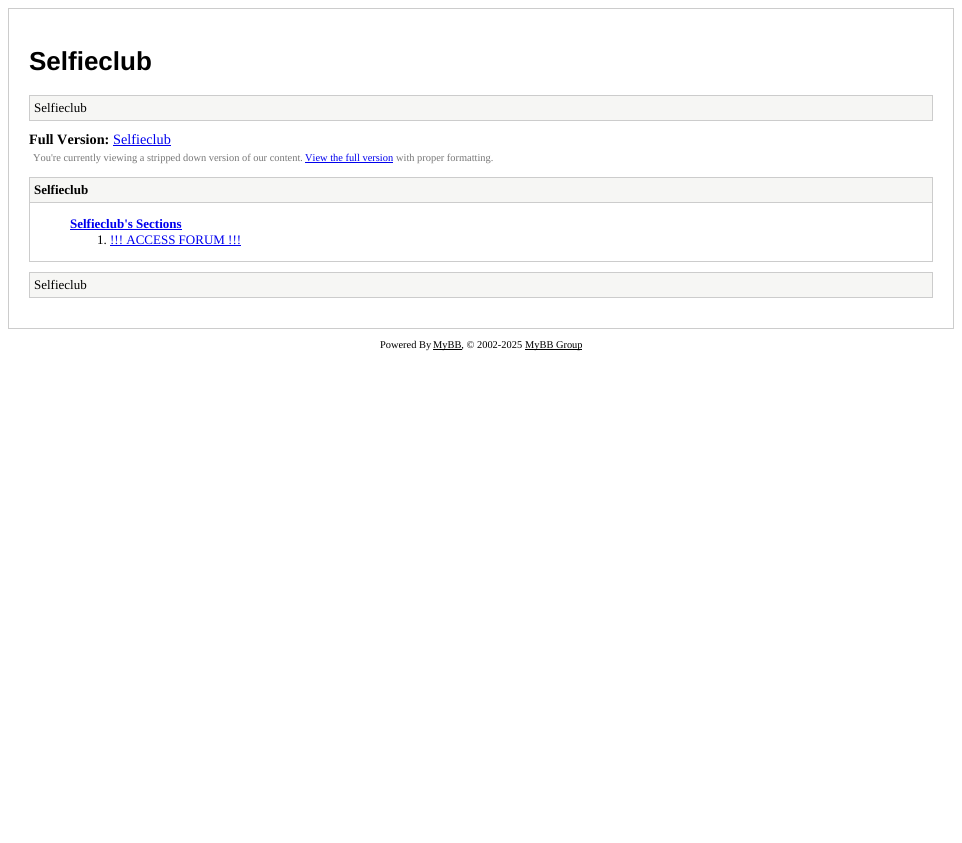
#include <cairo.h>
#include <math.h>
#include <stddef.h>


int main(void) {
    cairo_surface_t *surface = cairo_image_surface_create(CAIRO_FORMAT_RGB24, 962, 843);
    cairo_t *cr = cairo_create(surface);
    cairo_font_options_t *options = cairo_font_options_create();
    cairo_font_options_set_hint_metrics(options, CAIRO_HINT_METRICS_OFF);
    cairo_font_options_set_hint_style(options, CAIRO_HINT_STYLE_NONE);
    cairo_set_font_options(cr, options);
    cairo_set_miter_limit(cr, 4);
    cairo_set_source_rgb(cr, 1, 1, 1);
    cairo_paint(cr);
    cairo_rectangle(cr, 8.5, 8.5, 945, 320);
    cairo_set_source_rgb(cr, 0.8, 0.8, 0.8);
    cairo_set_line_width(cr, 1);
    cairo_stroke(cr);
    cairo_select_font_face(cr, "Liberation Sans", CAIRO_FONT_SLANT_NORMAL, CAIRO_FONT_WEIGHT_BOLD);
    cairo_set_font_size(cr, 26);
    cairo_set_source_rgb(cr, 0, 0, 0);
    cairo_move_to(cr, 29, 70);
    cairo_show_text(cr, "Selfieclub");
    cairo_set_source_rgb(cr, 0.961, 0.961, 0.957);
    cairo_rectangle(cr, 29.5, 95.5, 903, 25);
    cairo_fill_preserve(cr);
    cairo_set_source_rgb(cr, 0.8, 0.8, 0.8);
    cairo_stroke(cr);
    cairo_select_font_face(cr, "Liberation Serif", CAIRO_FONT_SLANT_NORMAL, CAIRO_FONT_WEIGHT_NORMAL);
    cairo_set_font_size(cr, 13);
    cairo_set_source_rgb(cr, 0, 0, 0);
    cairo_move_to(cr, 34, 112);
    cairo_show_text(cr, "Selfieclub");
    cairo_select_font_face(cr, "Liberation Serif", CAIRO_FONT_SLANT_NORMAL, CAIRO_FONT_WEIGHT_BOLD);
    cairo_set_font_size(cr, 14.25);
    cairo_move_to(cr, 29, 144);
    cairo_show_text(cr, "Full Version:");
    cairo_select_font_face(cr, "Liberation Serif", CAIRO_FONT_SLANT_NORMAL, CAIRO_FONT_WEIGHT_NORMAL);
    cairo_set_source_rgb(cr, 0, 0, 0.933);
    cairo_move_to(cr, 113, 144);
    cairo_show_text(cr, "Selfieclub");
    cairo_rectangle(cr, 113, 145, 58, 1);
    cairo_fill(cr);
    cairo_set_font_size(cr, 10.4);
    cairo_set_source_rgb(cr, 0.467, 0.467, 0.467);
    cairo_move_to(cr, 33, 161);
    cairo_show_text(cr, "You're currently viewing a stripped down version of our content.");
    cairo_set_source_rgb(cr, 0, 0, 0.933);
    cairo_move_to(cr, 305, 161);
    cairo_show_text(cr, "View the full version");
    cairo_rectangle(cr, 305, 162, 88, 1);
    cairo_fill(cr);
    cairo_set_source_rgb(cr, 0.467, 0.467, 0.467);
    cairo_move_to(cr, 396, 161);
    cairo_show_text(cr, "with proper formatting.");
    cairo_rectangle(cr, 29.5, 177.5, 903, 84);
    cairo_set_source_rgb(cr, 0.8, 0.8, 0.8);
    cairo_stroke(cr);
    cairo_set_source_rgb(cr, 0.961, 0.961, 0.957);
    cairo_rectangle(cr, 30, 178, 902, 24);
    cairo_fill(cr);
    cairo_set_source_rgb(cr, 0.8, 0.8, 0.8);
    cairo_rectangle(cr, 30, 202, 902, 1);
    cairo_fill(cr);
    cairo_select_font_face(cr, "Liberation Serif", CAIRO_FONT_SLANT_NORMAL, CAIRO_FONT_WEIGHT_BOLD);
    cairo_set_font_size(cr, 13);
    cairo_set_source_rgb(cr, 0, 0, 0);
    cairo_move_to(cr, 34, 194);
    cairo_show_text(cr, "Selfieclub");
    cairo_set_source_rgb(cr, 0, 0, 0.933);
    cairo_move_to(cr, 70, 228);
    cairo_show_text(cr, "Selfieclub's Sections");
    cairo_rectangle(cr, 70, 229, 112, 1);
    cairo_fill(cr);
    cairo_select_font_face(cr, "Liberation Serif", CAIRO_FONT_SLANT_NORMAL, CAIRO_FONT_WEIGHT_NORMAL);
    cairo_set_source_rgb(cr, 0, 0, 0);
    cairo_move_to(cr, 97, 244);
    cairo_show_text(cr, "1.");
    cairo_set_source_rgb(cr, 0, 0, 0.933);
    cairo_move_to(cr, 110, 244);
    cairo_show_text(cr, "!!! ACCESS FORUM !!!");
    cairo_rectangle(cr, 110, 245, 131, 1);
    cairo_fill(cr);
    cairo_set_source_rgb(cr, 0.961, 0.961, 0.957);
    cairo_rectangle(cr, 29.5, 272.5, 903, 25);
    cairo_fill_preserve(cr);
    cairo_set_source_rgb(cr, 0.8, 0.8, 0.8);
    cairo_stroke(cr);
    cairo_set_source_rgb(cr, 0, 0, 0);
    cairo_move_to(cr, 34, 289);
    cairo_show_text(cr, "Selfieclub");
    cairo_set_font_size(cr, 10.4);
    cairo_move_to(cr, 380, 348);
    cairo_show_text(cr, "Powered By");
    cairo_rectangle(cr, 433, 349, 29, 1);
    cairo_fill(cr);
    cairo_move_to(cr, 433, 348);
    cairo_show_text(cr, "MyBB, © 2002-2025");
    cairo_rectangle(cr, 525, 349, 57, 1);
    cairo_fill(cr);
    cairo_move_to(cr, 525, 348);
    cairo_show_text(cr, "MyBB Group");
    cairo_surface_write_to_png(surface, "page.png");
    cairo_font_options_destroy(options);
    cairo_destroy(cr);
    cairo_surface_destroy(surface);
    return 0;
}
